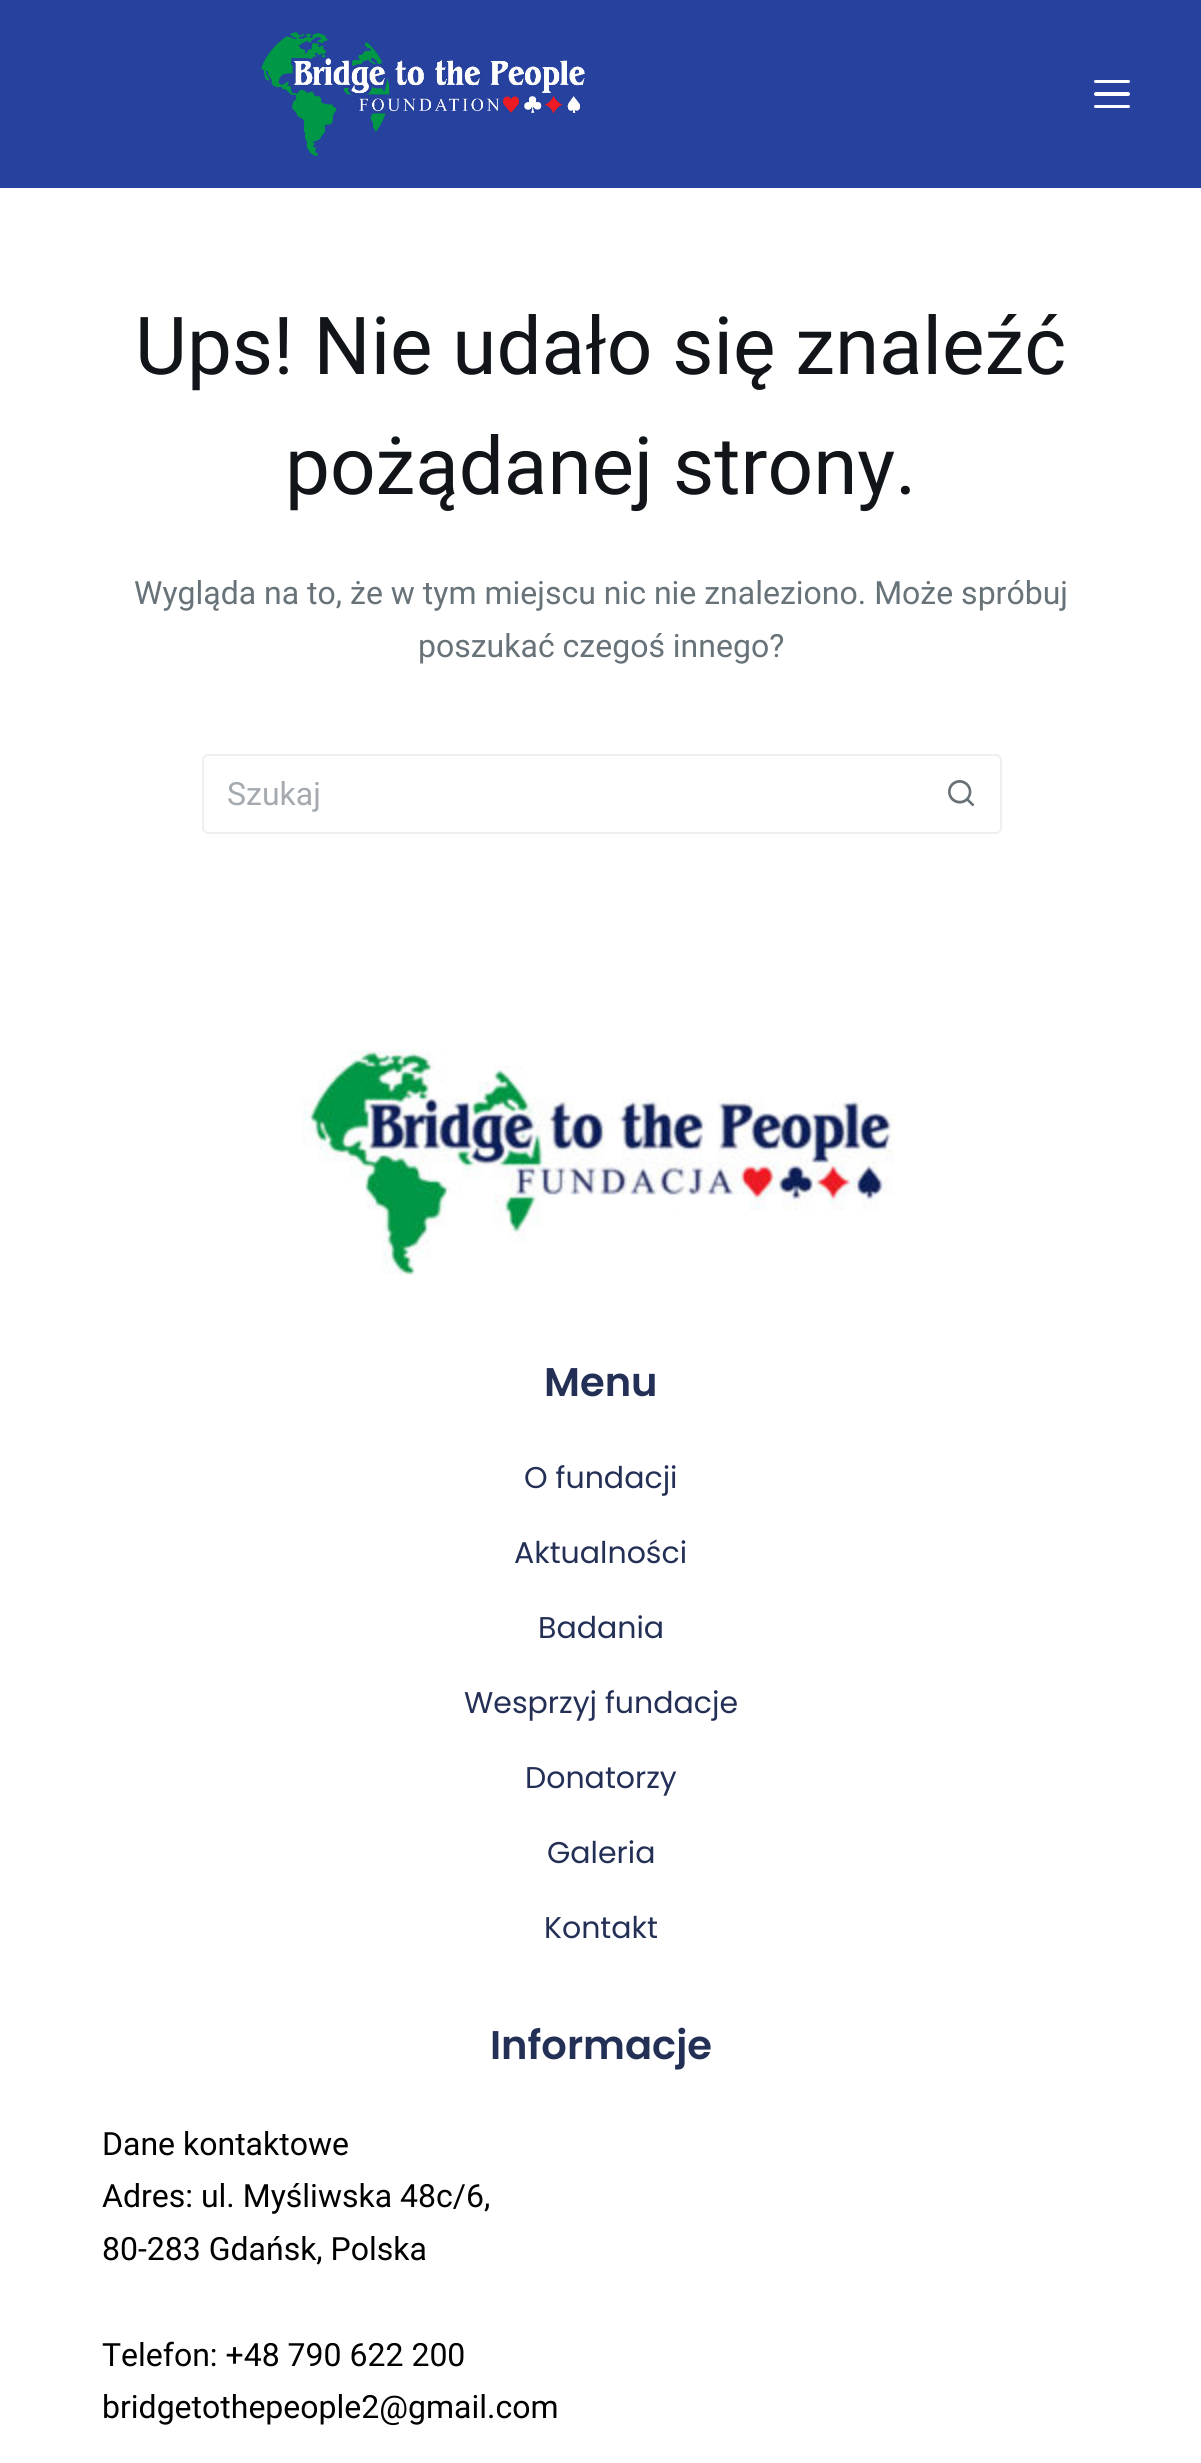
#include <cairo.h>
#include <math.h>
#include <stddef.h>


static void round_rect(cairo_t *cr, double x, double y, double w, double h, double r) {
    cairo_new_sub_path(cr);
    cairo_arc(cr, x + w - r, y + h - r, r, 0, M_PI / 2);
    cairo_arc(cr, x + r, y + h - r, r, M_PI / 2, M_PI);
    cairo_arc(cr, x + r, y + r, r, M_PI, 1.5 * M_PI);
    cairo_arc(cr, x + w - r, y + r, r, 1.5 * M_PI, 2 * M_PI);
    cairo_close_path(cr);
}

static void picture(cairo_t *cr, const char *path, double x, double y, double w, double h) {
    cairo_surface_t *image = cairo_image_surface_create_from_png(path);
    cairo_save(cr);
    cairo_set_source_surface(cr, image, x, y);
    cairo_rectangle(cr, x, y, w, h);
    cairo_fill(cr);
    cairo_restore(cr);
    cairo_surface_destroy(image);
}

int main(void) {
    cairo_surface_t *surface = cairo_image_surface_create(CAIRO_FORMAT_RGB24, 1201, 2463);
    cairo_t *cr = cairo_create(surface);
    cairo_font_options_t *options = cairo_font_options_create();
    cairo_font_options_set_hint_metrics(options, CAIRO_HINT_METRICS_OFF);
    cairo_font_options_set_hint_style(options, CAIRO_HINT_STYLE_NONE);
    cairo_set_font_options(cr, options);
    cairo_set_miter_limit(cr, 4);
    cairo_set_source_rgb(cr, 1, 1, 1);
    cairo_paint(cr);
    cairo_set_source_rgb(cr, 0.153, 0.255, 0.62);
    cairo_rectangle(cr, 0, 0, 1201, 188);
    cairo_fill(cr);
    picture(cr, "img1.png", 261, 32, 326, 125);
    cairo_set_source_rgb(cr, 1, 1, 1);
    round_rect(cr, 1094, 80, 36, 3, 1.5);
    cairo_fill(cr);
    round_rect(cr, 1094, 92, 36, 4, 2);
    cairo_fill(cr);
    round_rect(cr, 1094, 105, 36, 3, 1.5);
    cairo_fill(cr);
    cairo_select_font_face(cr, "Roboto", CAIRO_FONT_SLANT_NORMAL, CAIRO_FONT_WEIGHT_NORMAL);
    cairo_set_font_size(cr, 80);
    cairo_set_source_rgb(cr, 0.067, 0.082, 0.094);
    cairo_move_to(cr, 135, 374);
    cairo_show_text(cr, "Ups! Nie udało się znaleźć");
    cairo_move_to(cr, 285, 494);
    cairo_show_text(cr, "pożądanej strony.");
    cairo_set_font_size(cr, 32);
    cairo_set_source_rgb(cr, 0.408, 0.447, 0.475);
    cairo_move_to(cr, 134, 604);
    cairo_show_text(cr, "Wygląda na to, że w tym miejscu nic nie znaleziono. Może spróbuj");
    cairo_move_to(cr, 418, 657);
    cairo_show_text(cr, "poszukać czegoś innego?");
    cairo_set_source_rgb(cr, 0.929, 0.937, 0.949);
    cairo_set_fill_rule(cr, CAIRO_FILL_RULE_EVEN_ODD);
    cairo_new_path(cr);
    cairo_move_to(cr, 208, 754);
    cairo_line_to(cr, 922, 754);
    cairo_line_to(cr, 922, 834);
    cairo_line_to(cr, 208, 834);
    cairo_curve_to(cr, 205, 834, 202, 831, 202, 828);
    cairo_line_to(cr, 202, 760);
    cairo_curve_to(cr, 202, 757, 205, 754, 208, 754);
    cairo_close_path(cr);
    cairo_move_to(cr, 208, 756);
    cairo_line_to(cr, 922, 756);
    cairo_line_to(cr, 922, 832);
    cairo_line_to(cr, 208, 832);
    cairo_curve_to(cr, 206, 832, 204, 830, 204, 828);
    cairo_line_to(cr, 204, 760);
    cairo_curve_to(cr, 204, 758, 206, 756, 208, 756);
    cairo_close_path(cr);
    cairo_fill(cr);
    cairo_set_source_rgb(cr, 0.643, 0.667, 0.686);
    cairo_move_to(cr, 227, 805);
    cairo_show_text(cr, "Szukaj");
    cairo_set_source_rgb(cr, 0.929, 0.937, 0.949);
    cairo_new_path(cr);
    cairo_move_to(cr, 922, 754);
    cairo_line_to(cr, 996, 754);
    cairo_curve_to(cr, 999, 754, 1002, 757, 1002, 760);
    cairo_line_to(cr, 1002, 828);
    cairo_curve_to(cr, 1002, 831, 999, 834, 996, 834);
    cairo_line_to(cr, 922, 834);
    cairo_close_path(cr);
    cairo_move_to(cr, 922, 756);
    cairo_line_to(cr, 996, 756);
    cairo_curve_to(cr, 998, 756, 1000, 758, 1000, 760);
    cairo_line_to(cr, 1000, 828);
    cairo_curve_to(cr, 1000, 830, 998, 832, 996, 832);
    cairo_line_to(cr, 922, 832);
    cairo_close_path(cr);
    cairo_fill(cr);
    picture(cr, "img2.png", 948, 780, 26, 26);
    picture(cr, "img3.png", 302, 1049, 592, 226);
    cairo_select_font_face(cr, "Poppins SemiBold", CAIRO_FONT_SLANT_NORMAL, CAIRO_FONT_WEIGHT_NORMAL);
    cairo_set_font_size(cr, 40);
    cairo_set_source_rgb(cr, 0.137, 0.184, 0.333);
    cairo_move_to(cr, 544, 1396);
    cairo_show_text(cr, "Menu");
    cairo_select_font_face(cr, "Poppins", CAIRO_FONT_SLANT_NORMAL, CAIRO_FONT_WEIGHT_NORMAL);
    cairo_set_font_size(cr, 30);
    cairo_move_to(cr, 524, 1488);
    cairo_show_text(cr, "O fundacji");
    cairo_move_to(cr, 514, 1563);
    cairo_show_text(cr, "Aktualności");
    cairo_move_to(cr, 538, 1638);
    cairo_show_text(cr, "Badania");
    cairo_move_to(cr, 464, 1713);
    cairo_show_text(cr, "Wesprzyj fundacje");
    cairo_move_to(cr, 525, 1788);
    cairo_show_text(cr, "Donatorzy");
    cairo_move_to(cr, 547, 1863);
    cairo_show_text(cr, "Galeria");
    cairo_move_to(cr, 544, 1938);
    cairo_show_text(cr, "Kontakt");
    cairo_select_font_face(cr, "Poppins SemiBold", CAIRO_FONT_SLANT_NORMAL, CAIRO_FONT_WEIGHT_NORMAL);
    cairo_set_font_size(cr, 40);
    cairo_move_to(cr, 490, 2059);
    cairo_show_text(cr, "Informacje");
    cairo_select_font_face(cr, "Roboto", CAIRO_FONT_SLANT_NORMAL, CAIRO_FONT_WEIGHT_NORMAL);
    cairo_set_font_size(cr, 32);
    cairo_set_source_rgb(cr, 0, 0, 0);
    cairo_move_to(cr, 102, 2155);
    cairo_show_text(cr, "Dane kontaktowe");
    cairo_move_to(cr, 102, 2207);
    cairo_show_text(cr, "Adres: ul. Myśliwska 48c/6,");
    cairo_move_to(cr, 102, 2260);
    cairo_show_text(cr, "80-283 Gdańsk, Polska");
    cairo_move_to(cr, 102, 2366);
    cairo_show_text(cr, "Telefon: +48 790 622 200");
    cairo_move_to(cr, 102, 2418);
    cairo_show_text(cr, "bridgetothepeople2@gmail.com");
    cairo_surface_write_to_png(surface, "page.png");
    cairo_font_options_destroy(options);
    cairo_destroy(cr);
    cairo_surface_destroy(surface);
    return 0;
}
